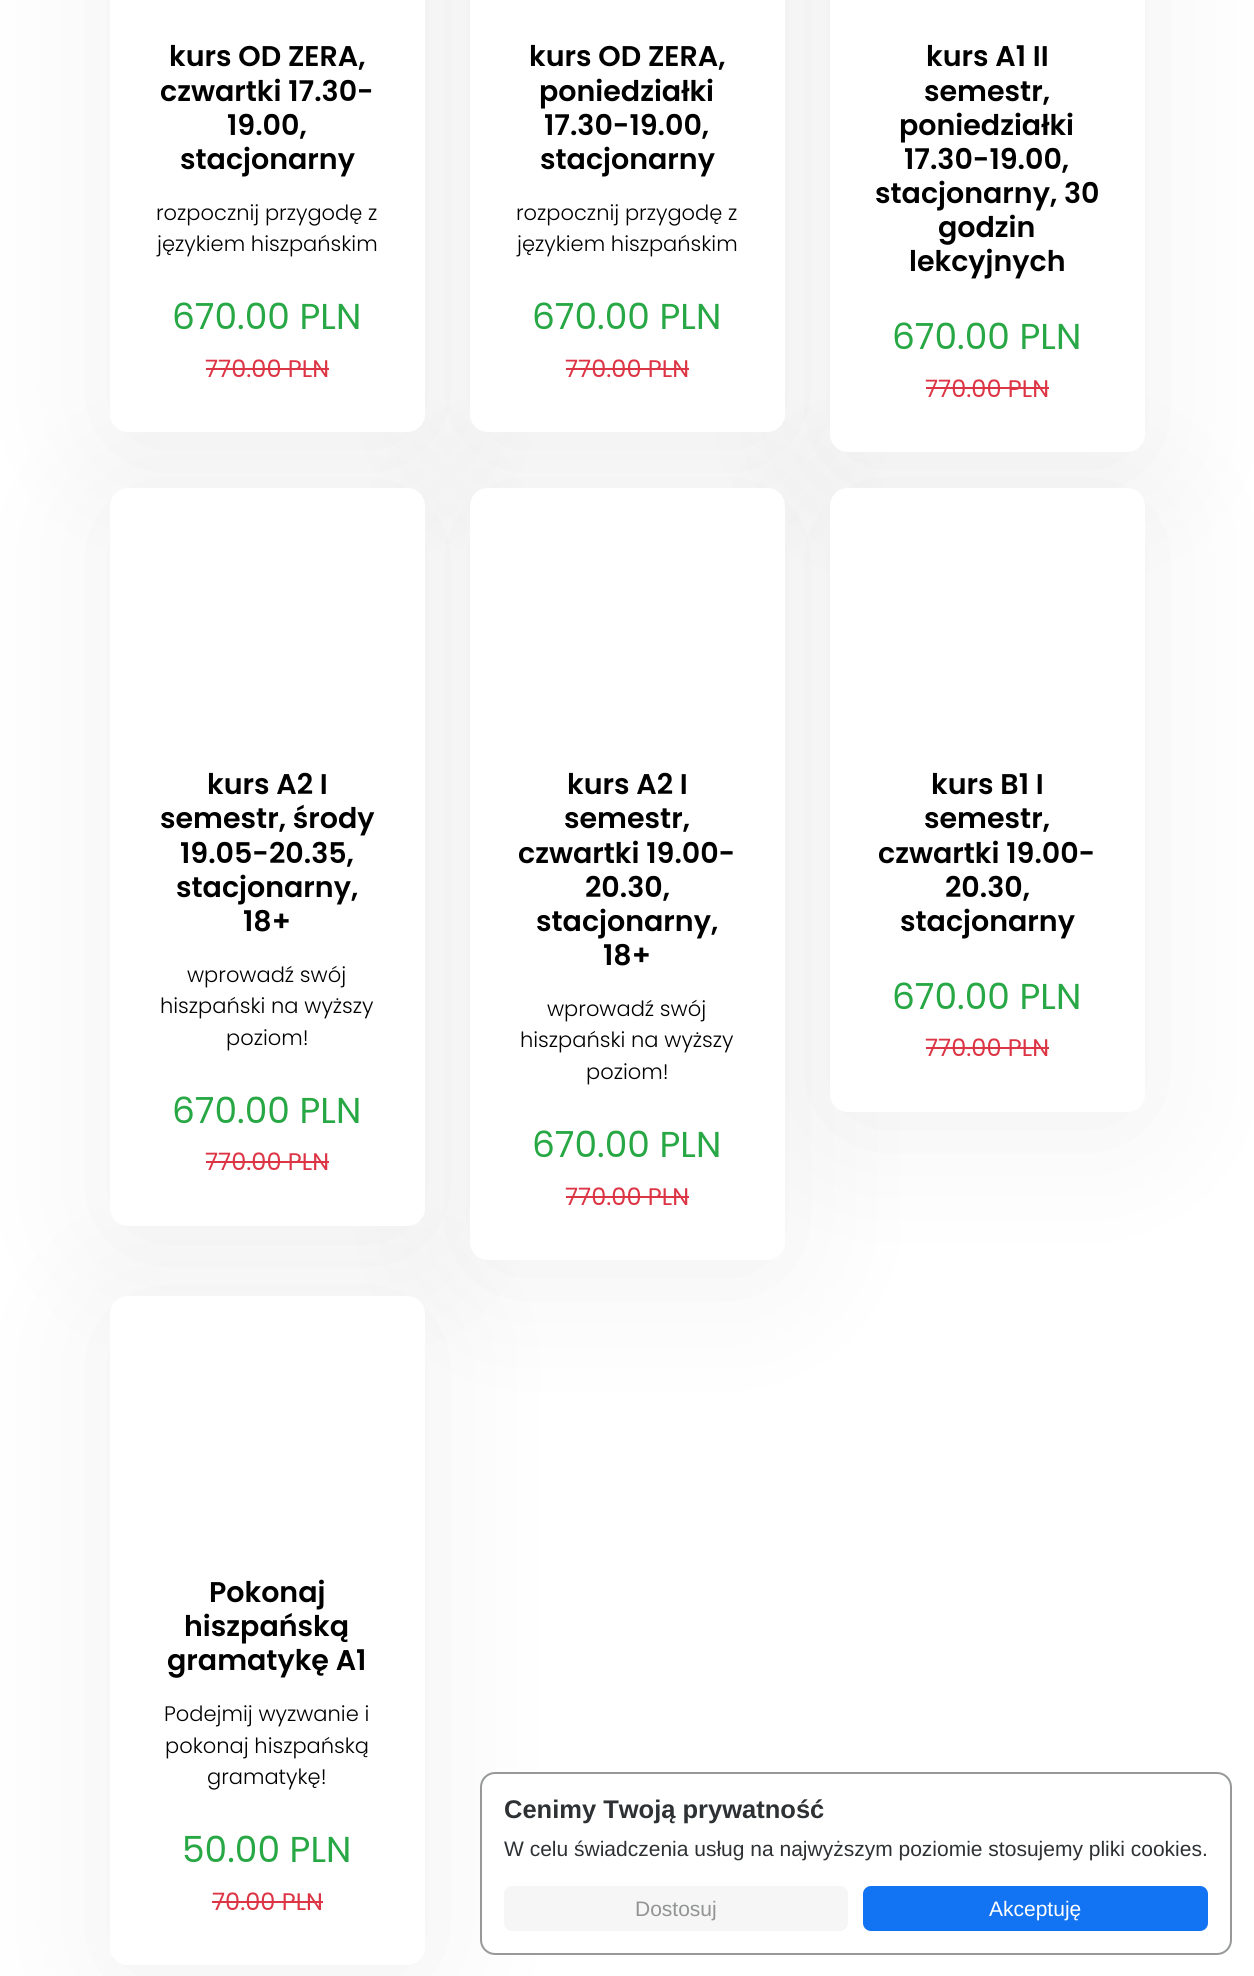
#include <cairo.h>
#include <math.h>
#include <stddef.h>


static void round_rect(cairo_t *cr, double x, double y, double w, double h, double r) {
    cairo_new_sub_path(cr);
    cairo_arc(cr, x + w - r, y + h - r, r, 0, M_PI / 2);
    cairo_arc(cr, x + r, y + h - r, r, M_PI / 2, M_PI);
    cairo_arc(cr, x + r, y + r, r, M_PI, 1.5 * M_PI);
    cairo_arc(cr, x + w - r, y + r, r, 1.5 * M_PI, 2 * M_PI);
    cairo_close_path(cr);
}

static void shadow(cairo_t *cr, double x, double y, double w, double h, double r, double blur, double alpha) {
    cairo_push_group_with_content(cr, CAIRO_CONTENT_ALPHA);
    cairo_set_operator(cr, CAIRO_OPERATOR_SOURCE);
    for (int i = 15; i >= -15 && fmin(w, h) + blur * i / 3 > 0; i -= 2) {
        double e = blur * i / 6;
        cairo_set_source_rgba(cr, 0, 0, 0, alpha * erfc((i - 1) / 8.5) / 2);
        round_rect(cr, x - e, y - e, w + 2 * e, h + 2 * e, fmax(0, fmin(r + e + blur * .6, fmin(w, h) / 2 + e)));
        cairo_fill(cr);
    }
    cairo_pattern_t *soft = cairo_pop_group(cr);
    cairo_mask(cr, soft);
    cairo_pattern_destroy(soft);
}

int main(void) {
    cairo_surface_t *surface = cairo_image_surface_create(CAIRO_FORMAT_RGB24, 1254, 1976);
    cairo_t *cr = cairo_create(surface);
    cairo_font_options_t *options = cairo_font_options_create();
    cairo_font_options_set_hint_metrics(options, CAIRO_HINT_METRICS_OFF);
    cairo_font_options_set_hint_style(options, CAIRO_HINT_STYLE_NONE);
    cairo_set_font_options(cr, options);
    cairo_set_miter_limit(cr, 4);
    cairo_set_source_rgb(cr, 1, 1, 1);
    cairo_paint(cr);
    cairo_set_source_rgb(cr, 0, 0, 0);
    shadow(cr, 95, -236, 345, 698, 33, 67.5, 0.05);
    shadow(cr, 455, -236, 345, 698, 33, 67.5, 0.05);
    shadow(cr, 95, 488, 345, 768, 33, 67.5, 0.05);
    shadow(cr, 455, 488, 345, 802, 33, 67.5, 0.05);
    cairo_set_source_rgb(cr, 1, 1, 1);
    round_rect(cr, 110, -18, 315, 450, 18);
    cairo_fill(cr);
    cairo_select_font_face(cr, "Poppins SemiBold", CAIRO_FONT_SLANT_NORMAL, CAIRO_FONT_WEIGHT_NORMAL);
    cairo_set_font_size(cr, 28.5);
    cairo_set_source_rgb(cr, 0, 0, 0);
    cairo_move_to(cr, 169, 66);
    cairo_show_text(cr, "kurs OD ZERA,");
    cairo_move_to(cr, 160, 101);
    cairo_show_text(cr, "czwartki 17.30-");
    cairo_move_to(cr, 227, 135);
    cairo_show_text(cr, "19.00,");
    cairo_move_to(cr, 180, 169);
    cairo_show_text(cr, "stacjonarny");
    cairo_select_font_face(cr, "Poppins Light", CAIRO_FONT_SLANT_NORMAL, CAIRO_FONT_WEIGHT_NORMAL);
    cairo_set_font_size(cr, 21);
    cairo_move_to(cr, 156, 220);
    cairo_show_text(cr, "rozpocznij przygodę z");
    cairo_move_to(cr, 157, 251);
    cairo_show_text(cr, "językiem hiszpańskim");
    cairo_select_font_face(cr, "Poppins", CAIRO_FONT_SLANT_NORMAL, CAIRO_FONT_WEIGHT_NORMAL);
    cairo_set_font_size(cr, 36);
    cairo_set_source_rgb(cr, 0.157, 0.655, 0.271);
    cairo_move_to(cr, 172, 329);
    cairo_show_text(cr, "670.00 PLN");
    cairo_set_font_size(cr, 24);
    cairo_set_source_rgb(cr, 0.863, 0.208, 0.271);
    cairo_move_to(cr, 205, 377);
    cairo_show_text(cr, "770.00 PLN");
    cairo_rectangle(cr, 206, 368, 123, 2);
    cairo_fill(cr);
    cairo_set_source_rgb(cr, 0, 0, 0);
    shadow(cr, 815, -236, 345, 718, 33, 67.5, 0.05);
    shadow(cr, 815, 488, 345, 654, 33, 67.5, 0.05);
    cairo_set_source_rgb(cr, 1, 1, 1);
    round_rect(cr, 470, -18, 315, 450, 18);
    cairo_fill(cr);
    cairo_select_font_face(cr, "Poppins SemiBold", CAIRO_FONT_SLANT_NORMAL, CAIRO_FONT_WEIGHT_NORMAL);
    cairo_set_font_size(cr, 28.5);
    cairo_set_source_rgb(cr, 0, 0, 0);
    cairo_move_to(cr, 529, 66);
    cairo_show_text(cr, "kurs OD ZERA,");
    cairo_move_to(cr, 539, 101);
    cairo_show_text(cr, "poniedziałki");
    cairo_move_to(cr, 544, 135);
    cairo_show_text(cr, "17.30-19.00,");
    cairo_move_to(cr, 540, 169);
    cairo_show_text(cr, "stacjonarny");
    cairo_select_font_face(cr, "Poppins Light", CAIRO_FONT_SLANT_NORMAL, CAIRO_FONT_WEIGHT_NORMAL);
    cairo_set_font_size(cr, 21);
    cairo_move_to(cr, 516, 220);
    cairo_show_text(cr, "rozpocznij przygodę z");
    cairo_move_to(cr, 517, 251);
    cairo_show_text(cr, "językiem hiszpańskim");
    cairo_select_font_face(cr, "Poppins", CAIRO_FONT_SLANT_NORMAL, CAIRO_FONT_WEIGHT_NORMAL);
    cairo_set_font_size(cr, 36);
    cairo_set_source_rgb(cr, 0.157, 0.655, 0.271);
    cairo_move_to(cr, 532, 329);
    cairo_show_text(cr, "670.00 PLN");
    cairo_set_font_size(cr, 24);
    cairo_set_source_rgb(cr, 0.863, 0.208, 0.271);
    cairo_move_to(cr, 565, 377);
    cairo_show_text(cr, "770.00 PLN");
    cairo_rectangle(cr, 566, 368, 123, 2);
    cairo_fill(cr);
    cairo_set_source_rgb(cr, 1, 1, 1);
    round_rect(cr, 830, -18, 315, 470, 18);
    cairo_fill(cr);
    cairo_select_font_face(cr, "Poppins SemiBold", CAIRO_FONT_SLANT_NORMAL, CAIRO_FONT_WEIGHT_NORMAL);
    cairo_set_font_size(cr, 28.5);
    cairo_set_source_rgb(cr, 0, 0, 0);
    cairo_move_to(cr, 926, 66);
    cairo_show_text(cr, "kurs A1 II");
    cairo_move_to(cr, 924, 101);
    cairo_show_text(cr, "semestr,");
    cairo_move_to(cr, 899, 135);
    cairo_show_text(cr, "poniedziałki");
    cairo_move_to(cr, 904, 169);
    cairo_show_text(cr, "17.30-19.00,");
    cairo_move_to(cr, 875, 203);
    cairo_show_text(cr, "stacjonarny, 30");
    cairo_move_to(cr, 938, 237);
    cairo_show_text(cr, "godzin");
    cairo_move_to(cr, 909, 271);
    cairo_show_text(cr, "lekcyjnych");
    cairo_select_font_face(cr, "Poppins", CAIRO_FONT_SLANT_NORMAL, CAIRO_FONT_WEIGHT_NORMAL);
    cairo_set_font_size(cr, 36);
    cairo_set_source_rgb(cr, 0.157, 0.655, 0.271);
    cairo_move_to(cr, 892, 349);
    cairo_show_text(cr, "670.00 PLN");
    cairo_set_font_size(cr, 24);
    cairo_set_source_rgb(cr, 0.863, 0.208, 0.271);
    cairo_move_to(cr, 925, 397);
    cairo_show_text(cr, "770.00 PLN");
    cairo_rectangle(cr, 926, 387, 123, 2);
    cairo_fill(cr);
    cairo_set_source_rgb(cr, 0, 0, 0);
    shadow(cr, 95, 1296, 345, 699, 33, 67.5, 0.05);
    cairo_set_source_rgb(cr, 1, 1, 1);
    round_rect(cr, 110, 488, 315, 738, 18);
    cairo_fill(cr);
    cairo_select_font_face(cr, "Poppins SemiBold", CAIRO_FONT_SLANT_NORMAL, CAIRO_FONT_WEIGHT_NORMAL);
    cairo_set_font_size(cr, 28.5);
    cairo_set_source_rgb(cr, 0, 0, 0);
    cairo_move_to(cr, 207, 794);
    cairo_show_text(cr, "kurs A2 I");
    cairo_move_to(cr, 160, 828);
    cairo_show_text(cr, "semestr, środy");
    cairo_move_to(cr, 180, 863);
    cairo_show_text(cr, "19.05-20.35,");
    cairo_move_to(cr, 176, 897);
    cairo_show_text(cr, "stacjonarny,");
    cairo_move_to(cr, 243, 931);
    cairo_show_text(cr, "18+");
    cairo_select_font_face(cr, "Poppins Light", CAIRO_FONT_SLANT_NORMAL, CAIRO_FONT_WEIGHT_NORMAL);
    cairo_set_font_size(cr, 21);
    cairo_move_to(cr, 187, 982);
    cairo_show_text(cr, "wprowadź swój");
    cairo_move_to(cr, 160, 1013);
    cairo_show_text(cr, "hiszpański na wyższy");
    cairo_move_to(cr, 226, 1045);
    cairo_show_text(cr, "poziom!");
    cairo_select_font_face(cr, "Poppins", CAIRO_FONT_SLANT_NORMAL, CAIRO_FONT_WEIGHT_NORMAL);
    cairo_set_font_size(cr, 36);
    cairo_set_source_rgb(cr, 0.157, 0.655, 0.271);
    cairo_move_to(cr, 172, 1123);
    cairo_show_text(cr, "670.00 PLN");
    cairo_set_font_size(cr, 24);
    cairo_set_source_rgb(cr, 0.863, 0.208, 0.271);
    cairo_move_to(cr, 205, 1170);
    cairo_show_text(cr, "770.00 PLN");
    cairo_rectangle(cr, 206, 1161, 123, 2);
    cairo_fill(cr);
    cairo_set_source_rgb(cr, 1, 1, 1);
    round_rect(cr, 470, 488, 315, 772, 18);
    cairo_fill(cr);
    cairo_select_font_face(cr, "Poppins SemiBold", CAIRO_FONT_SLANT_NORMAL, CAIRO_FONT_WEIGHT_NORMAL);
    cairo_set_font_size(cr, 28.5);
    cairo_set_source_rgb(cr, 0, 0, 0);
    cairo_move_to(cr, 567, 794);
    cairo_show_text(cr, "kurs A2 I");
    cairo_move_to(cr, 564, 828);
    cairo_show_text(cr, "semestr,");
    cairo_move_to(cr, 518, 863);
    cairo_show_text(cr, "czwartki 19.00-");
    cairo_move_to(cr, 585, 897);
    cairo_show_text(cr, "20.30,");
    cairo_move_to(cr, 536, 931);
    cairo_show_text(cr, "stacjonarny,");
    cairo_move_to(cr, 603, 965);
    cairo_show_text(cr, "18+");
    cairo_select_font_face(cr, "Poppins Light", CAIRO_FONT_SLANT_NORMAL, CAIRO_FONT_WEIGHT_NORMAL);
    cairo_set_font_size(cr, 21);
    cairo_move_to(cr, 547, 1016);
    cairo_show_text(cr, "wprowadź swój");
    cairo_move_to(cr, 520, 1047);
    cairo_show_text(cr, "hiszpański na wyższy");
    cairo_move_to(cr, 586, 1079);
    cairo_show_text(cr, "poziom!");
    cairo_select_font_face(cr, "Poppins", CAIRO_FONT_SLANT_NORMAL, CAIRO_FONT_WEIGHT_NORMAL);
    cairo_set_font_size(cr, 36);
    cairo_set_source_rgb(cr, 0.157, 0.655, 0.271);
    cairo_move_to(cr, 532, 1157);
    cairo_show_text(cr, "670.00 PLN");
    cairo_set_font_size(cr, 24);
    cairo_set_source_rgb(cr, 0.863, 0.208, 0.271);
    cairo_move_to(cr, 565, 1205);
    cairo_show_text(cr, "770.00 PLN");
    cairo_rectangle(cr, 566, 1196, 123, 2);
    cairo_fill(cr);
    cairo_set_source_rgb(cr, 1, 1, 1);
    round_rect(cr, 830, 488, 315, 624, 18);
    cairo_fill(cr);
    cairo_select_font_face(cr, "Poppins SemiBold", CAIRO_FONT_SLANT_NORMAL, CAIRO_FONT_WEIGHT_NORMAL);
    cairo_set_font_size(cr, 28.5);
    cairo_set_source_rgb(cr, 0, 0, 0);
    cairo_move_to(cr, 931, 794);
    cairo_show_text(cr, "kurs B1 I");
    cairo_move_to(cr, 924, 828);
    cairo_show_text(cr, "semestr,");
    cairo_move_to(cr, 878, 863);
    cairo_show_text(cr, "czwartki 19.00-");
    cairo_move_to(cr, 945, 897);
    cairo_show_text(cr, "20.30,");
    cairo_move_to(cr, 900, 931);
    cairo_show_text(cr, "stacjonarny");
    cairo_select_font_face(cr, "Poppins", CAIRO_FONT_SLANT_NORMAL, CAIRO_FONT_WEIGHT_NORMAL);
    cairo_set_font_size(cr, 36);
    cairo_set_source_rgb(cr, 0.157, 0.655, 0.271);
    cairo_move_to(cr, 892, 1009);
    cairo_show_text(cr, "670.00 PLN");
    cairo_set_font_size(cr, 24);
    cairo_set_source_rgb(cr, 0.863, 0.208, 0.271);
    cairo_move_to(cr, 925, 1056);
    cairo_show_text(cr, "770.00 PLN");
    cairo_rectangle(cr, 926, 1047, 123, 2);
    cairo_fill(cr);
    cairo_set_source_rgb(cr, 1, 1, 1);
    round_rect(cr, 110, 1296, 315, 669, 18);
    cairo_fill(cr);
    cairo_select_font_face(cr, "Poppins SemiBold", CAIRO_FONT_SLANT_NORMAL, CAIRO_FONT_WEIGHT_NORMAL);
    cairo_set_font_size(cr, 28.5);
    cairo_set_source_rgb(cr, 0, 0, 0);
    cairo_move_to(cr, 209, 1602);
    cairo_show_text(cr, "Pokonaj");
    cairo_move_to(cr, 184, 1636);
    cairo_show_text(cr, "hiszpańską");
    cairo_move_to(cr, 167, 1670);
    cairo_show_text(cr, "gramatykę A1");
    cairo_select_font_face(cr, "Poppins Light", CAIRO_FONT_SLANT_NORMAL, CAIRO_FONT_WEIGHT_NORMAL);
    cairo_set_font_size(cr, 21);
    cairo_move_to(cr, 164, 1721);
    cairo_show_text(cr, "Podejmij wyzwanie i");
    cairo_move_to(cr, 165, 1753);
    cairo_show_text(cr, "pokonaj hiszpańską");
    cairo_move_to(cr, 207, 1784);
    cairo_show_text(cr, "gramatykę!");
    cairo_select_font_face(cr, "Poppins", CAIRO_FONT_SLANT_NORMAL, CAIRO_FONT_WEIGHT_NORMAL);
    cairo_set_font_size(cr, 36);
    cairo_set_source_rgb(cr, 0.157, 0.655, 0.271);
    cairo_move_to(cr, 182, 1862);
    cairo_show_text(cr, "50.00 PLN");
    cairo_set_font_size(cr, 24);
    cairo_set_source_rgb(cr, 0.863, 0.208, 0.271);
    cairo_move_to(cr, 212, 1910);
    cairo_show_text(cr, "70.00 PLN");
    cairo_rectangle(cr, 212, 1901, 111, 2);
    cairo_fill(cr);
    cairo_set_source_rgb(cr, 1, 1, 1);
    round_rect(cr, 481, 1773, 750, 181, 14);
    cairo_fill_preserve(cr);
    cairo_set_source_rgb(cr, 0.588, 0.596, 0.6);
    cairo_stroke(cr);
    cairo_select_font_face(cr, "Liberation Sans", CAIRO_FONT_SLANT_NORMAL, CAIRO_FONT_WEIGHT_BOLD);
    cairo_set_font_size(cr, 25.5);
    cairo_set_source_rgb(cr, 0.18, 0.192, 0.2);
    cairo_move_to(cr, 504, 1818);
    cairo_show_text(cr, "Cenimy Twoją prywatność");
    cairo_select_font_face(cr, "Liberation Sans", CAIRO_FONT_SLANT_NORMAL, CAIRO_FONT_WEIGHT_NORMAL);
    cairo_set_font_size(cr, 21);
    cairo_move_to(cr, 504, 1856);
    cairo_show_text(cr, "W celu świadczenia usług na najwyższym poziomie stosujemy pliki cookies.");
    cairo_set_source_rgb(cr, 0.961, 0.961, 0.961);
    round_rect(cr, 504, 1886, 344, 45, 8);
    cairo_fill(cr);
    cairo_set_source_rgb(cr, 0.573, 0.576, 0.58);
    cairo_move_to(cr, 635, 1916);
    cairo_show_text(cr, "Dostosuj");
    cairo_set_source_rgb(cr, 0.071, 0.451, 0.953);
    round_rect(cr, 863, 1886, 345, 45, 8);
    cairo_fill(cr);
    cairo_set_source_rgb(cr, 1, 1, 1);
    cairo_move_to(cr, 989, 1916);
    cairo_show_text(cr, "Akceptuję");
    cairo_surface_write_to_png(surface, "page.png");
    cairo_font_options_destroy(options);
    cairo_destroy(cr);
    cairo_surface_destroy(surface);
    return 0;
}
